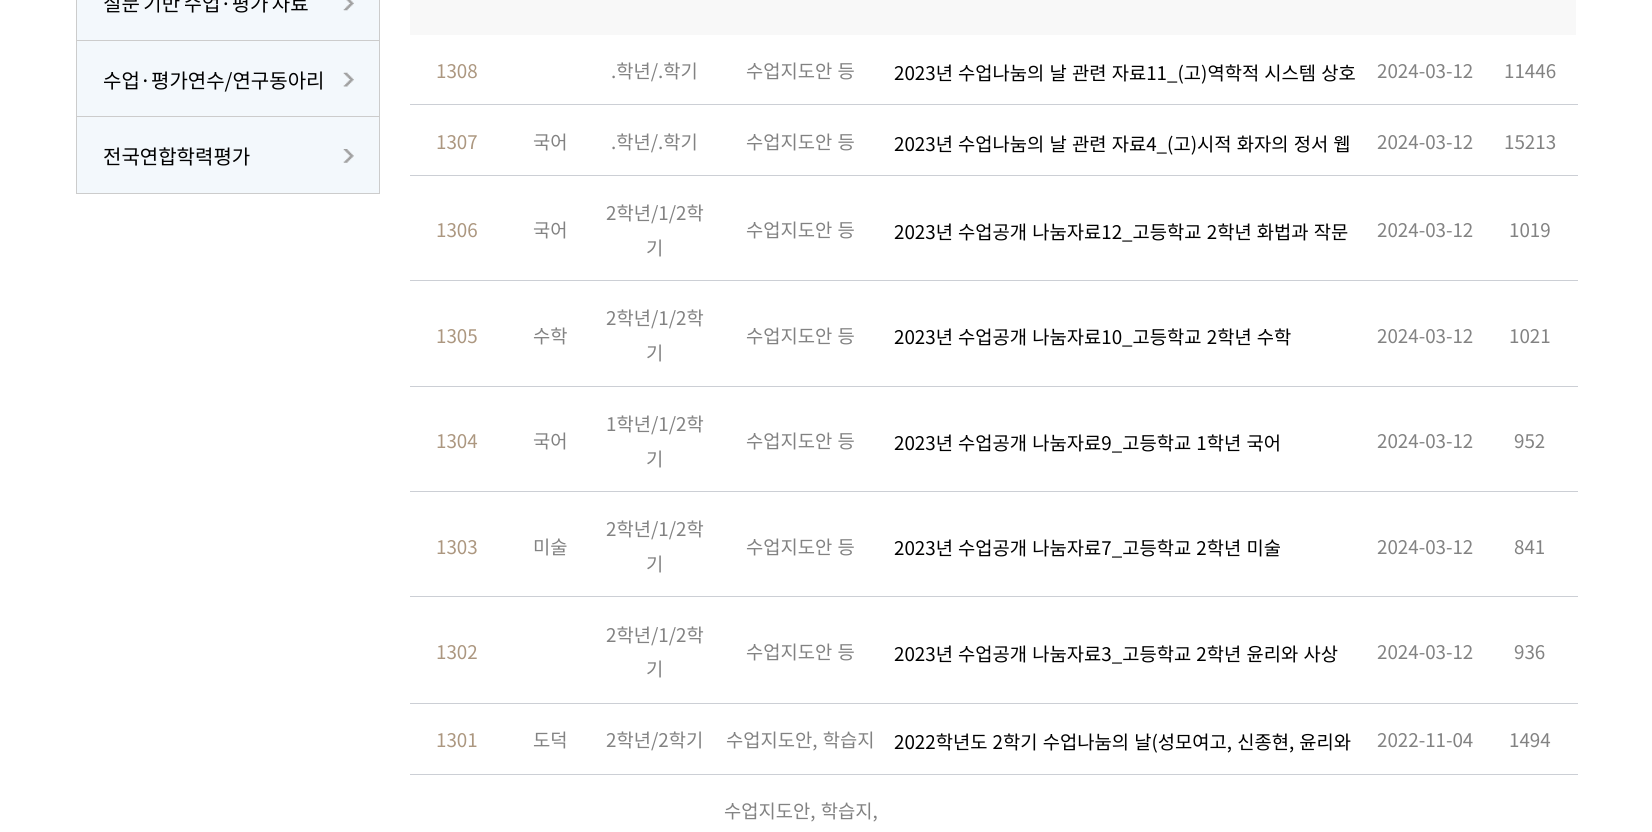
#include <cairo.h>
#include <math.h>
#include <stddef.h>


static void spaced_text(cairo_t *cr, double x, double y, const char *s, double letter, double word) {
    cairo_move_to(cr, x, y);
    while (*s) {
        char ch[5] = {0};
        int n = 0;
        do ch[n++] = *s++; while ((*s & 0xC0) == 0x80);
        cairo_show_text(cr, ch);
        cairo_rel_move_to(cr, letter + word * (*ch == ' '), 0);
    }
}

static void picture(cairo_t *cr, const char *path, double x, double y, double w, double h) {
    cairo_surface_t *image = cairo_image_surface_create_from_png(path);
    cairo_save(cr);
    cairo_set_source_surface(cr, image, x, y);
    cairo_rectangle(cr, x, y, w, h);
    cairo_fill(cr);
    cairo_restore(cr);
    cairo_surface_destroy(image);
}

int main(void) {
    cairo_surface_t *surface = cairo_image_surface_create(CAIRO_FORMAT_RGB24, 1652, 832);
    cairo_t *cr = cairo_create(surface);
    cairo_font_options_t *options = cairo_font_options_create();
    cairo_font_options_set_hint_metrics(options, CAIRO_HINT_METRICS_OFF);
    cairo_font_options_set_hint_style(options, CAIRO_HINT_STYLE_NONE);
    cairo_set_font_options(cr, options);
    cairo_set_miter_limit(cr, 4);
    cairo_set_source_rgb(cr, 1, 1, 1);
    cairo_paint(cr);
    cairo_set_source_rgb(cr, 0.953, 0.969, 0.988);
    cairo_rectangle(cr, 77, 0, 302, 40);
    cairo_fill(cr);
    cairo_set_source_rgb(cr, 0.8, 0.8, 0.8);
    cairo_rectangle(cr, 379, 0, 1, 194);
    cairo_fill(cr);
    cairo_rectangle(cr, 76, 40, 304, 1);
    cairo_fill(cr);
    cairo_rectangle(cr, 76, 0, 1, 41);
    cairo_fill(cr);
    cairo_select_font_face(cr, "Noto Sans KR", CAIRO_FONT_SLANT_NORMAL, CAIRO_FONT_WEIGHT_NORMAL);
    cairo_set_font_size(cr, 20);
    cairo_set_source_rgb(cr, 0, 0, 0);
    spaced_text(cr, 103, 11, "질문 기반 수업·평가 자료", 0, -1);
    picture(cr, "img1.png", 343, 0, 11, 11);
    cairo_set_source_rgb(cr, 0.953, 0.969, 0.988);
    cairo_rectangle(cr, 77, 41, 302, 152);
    cairo_fill(cr);
    cairo_set_source_rgb(cr, 0.8, 0.8, 0.8);
    cairo_rectangle(cr, 76, 116, 304, 1);
    cairo_fill(cr);
    cairo_rectangle(cr, 76, 41, 1, 77);
    cairo_fill(cr);
    cairo_set_source_rgb(cr, 0, 0, 0);
    cairo_move_to(cr, 103, 88);
    cairo_show_text(cr, "수업·평가연수/연구동아리");
    picture(cr, "img2.png", 343, 72, 11, 15);
    cairo_set_source_rgb(cr, 0.8, 0.8, 0.8);
    cairo_rectangle(cr, 76, 193, 304, 1);
    cairo_fill(cr);
    cairo_rectangle(cr, 76, 118, 1, 76);
    cairo_fill(cr);
    cairo_set_source_rgb(cr, 0, 0, 0);
    cairo_move_to(cr, 103, 164);
    cairo_show_text(cr, "전국연합학력평가");
    picture(cr, "img3.png", 343, 149, 11, 14);
    cairo_set_source_rgb(cr, 0.969, 0.969, 0.969);
    cairo_rectangle(cr, 410, 0, 1166, 35);
    cairo_fill(cr);
    cairo_set_font_size(cr, 18.75);
    cairo_set_source_rgb(cr, 0.675, 0.592, 0.502);
    cairo_move_to(cr, 436, 78);
    cairo_show_text(cr, "1308");
    cairo_set_source_rgb(cr, 0.51, 0.51, 0.51);
    cairo_move_to(cr, 611, 78);
    cairo_show_text(cr, ".학년/.학기");
    spaced_text(cr, 746, 78, "수업지도안 등", 0, 1);
    cairo_set_source_rgb(cr, 0, 0, 0);
    spaced_text(cr, 894, 80, "2023년 수업나눔의 날 관련 자료11_(고)역학적 시스템 상호", 0, 1);
    cairo_set_source_rgb(cr, 0.51, 0.51, 0.51);
    cairo_move_to(cr, 1377, 78);
    cairo_show_text(cr, "2024-03-12");
    cairo_set_source_rgb(cr, 0.8, 0.812, 0.835);
    cairo_rectangle(cr, 410, 104, 1168, 1);
    cairo_fill(cr);
    cairo_set_source_rgb(cr, 0.51, 0.51, 0.51);
    cairo_move_to(cr, 1504, 78);
    cairo_show_text(cr, "11446");
    cairo_set_source_rgb(cr, 0.675, 0.592, 0.502);
    cairo_move_to(cr, 436, 149);
    cairo_show_text(cr, "1307");
    cairo_set_source_rgb(cr, 0.51, 0.51, 0.51);
    cairo_move_to(cr, 533, 149);
    cairo_show_text(cr, "국어");
    cairo_move_to(cr, 611, 149);
    cairo_show_text(cr, ".학년/.학기");
    spaced_text(cr, 746, 149, "수업지도안 등", 0, 1);
    cairo_set_source_rgb(cr, 0, 0, 0);
    spaced_text(cr, 894, 151, "2023년 수업나눔의 날 관련 자료4_(고)시적 화자의 정서 웹", 0, 1);
    cairo_set_source_rgb(cr, 0.51, 0.51, 0.51);
    cairo_move_to(cr, 1377, 149);
    cairo_show_text(cr, "2024-03-12");
    cairo_set_source_rgb(cr, 0.8, 0.812, 0.835);
    cairo_rectangle(cr, 410, 175, 1168, 1);
    cairo_fill(cr);
    cairo_set_source_rgb(cr, 0.51, 0.51, 0.51);
    cairo_move_to(cr, 1504, 149);
    cairo_show_text(cr, "15213");
    cairo_set_source_rgb(cr, 0.675, 0.592, 0.502);
    cairo_move_to(cr, 436, 237);
    cairo_show_text(cr, "1306");
    cairo_set_source_rgb(cr, 0.51, 0.51, 0.51);
    cairo_move_to(cr, 533, 237);
    cairo_show_text(cr, "국어");
    cairo_move_to(cr, 606, 220);
    cairo_show_text(cr, "2학년/1/2학");
    cairo_move_to(cr, 646, 255);
    cairo_show_text(cr, "기");
    spaced_text(cr, 746, 237, "수업지도안 등", 0, 1);
    cairo_set_source_rgb(cr, 0, 0, 0);
    spaced_text(cr, 894, 239, "2023년 수업공개 나눔자료12_고등학교 2학년 화법과 작문", 0, 1);
    cairo_set_source_rgb(cr, 0.51, 0.51, 0.51);
    cairo_move_to(cr, 1377, 237);
    cairo_show_text(cr, "2024-03-12");
    cairo_set_source_rgb(cr, 0.8, 0.812, 0.835);
    cairo_rectangle(cr, 410, 280, 1168, 1);
    cairo_fill(cr);
    cairo_set_source_rgb(cr, 0.51, 0.51, 0.51);
    cairo_move_to(cr, 1509, 237);
    cairo_show_text(cr, "1019");
    cairo_set_source_rgb(cr, 0.675, 0.592, 0.502);
    cairo_move_to(cr, 436, 343);
    cairo_show_text(cr, "1305");
    cairo_set_source_rgb(cr, 0.51, 0.51, 0.51);
    cairo_move_to(cr, 533, 343);
    cairo_show_text(cr, "수학");
    cairo_move_to(cr, 606, 325);
    cairo_show_text(cr, "2학년/1/2학");
    cairo_move_to(cr, 646, 360);
    cairo_show_text(cr, "기");
    spaced_text(cr, 746, 343, "수업지도안 등", 0, 1);
    cairo_set_source_rgb(cr, 0, 0, 0);
    spaced_text(cr, 894, 344, "2023년 수업공개 나눔자료10_고등학교 2학년 수학", 0, 1);
    cairo_set_source_rgb(cr, 0.51, 0.51, 0.51);
    cairo_move_to(cr, 1377, 343);
    cairo_show_text(cr, "2024-03-12");
    cairo_set_source_rgb(cr, 0.8, 0.812, 0.835);
    cairo_rectangle(cr, 410, 386, 1168, 1);
    cairo_fill(cr);
    cairo_set_source_rgb(cr, 0.51, 0.51, 0.51);
    cairo_move_to(cr, 1509, 343);
    cairo_show_text(cr, "1021");
    cairo_set_source_rgb(cr, 0.675, 0.592, 0.502);
    cairo_move_to(cr, 436, 448);
    cairo_show_text(cr, "1304");
    cairo_set_source_rgb(cr, 0.51, 0.51, 0.51);
    cairo_move_to(cr, 533, 448);
    cairo_show_text(cr, "국어");
    cairo_move_to(cr, 606, 431);
    cairo_show_text(cr, "1학년/1/2학");
    cairo_move_to(cr, 646, 466);
    cairo_show_text(cr, "기");
    spaced_text(cr, 746, 448, "수업지도안 등", 0, 1);
    cairo_set_source_rgb(cr, 0, 0, 0);
    spaced_text(cr, 894, 450, "2023년 수업공개 나눔자료9_고등학교 1학년 국어", 0, 1);
    cairo_set_source_rgb(cr, 0.51, 0.51, 0.51);
    cairo_move_to(cr, 1377, 448);
    cairo_show_text(cr, "2024-03-12");
    cairo_set_source_rgb(cr, 0.8, 0.812, 0.835);
    cairo_rectangle(cr, 410, 491, 1168, 1);
    cairo_fill(cr);
    cairo_set_source_rgb(cr, 0.51, 0.51, 0.51);
    cairo_move_to(cr, 1514, 448);
    cairo_show_text(cr, "952");
    cairo_set_source_rgb(cr, 0.675, 0.592, 0.502);
    cairo_move_to(cr, 436, 554);
    cairo_show_text(cr, "1303");
    cairo_set_source_rgb(cr, 0.51, 0.51, 0.51);
    cairo_move_to(cr, 533, 554);
    cairo_show_text(cr, "미술");
    cairo_move_to(cr, 606, 536);
    cairo_show_text(cr, "2학년/1/2학");
    cairo_move_to(cr, 646, 571);
    cairo_show_text(cr, "기");
    spaced_text(cr, 746, 554, "수업지도안 등", 0, 1);
    cairo_set_source_rgb(cr, 0, 0, 0);
    spaced_text(cr, 894, 555, "2023년 수업공개 나눔자료7_고등학교 2학년 미술", 0, 1);
    cairo_set_source_rgb(cr, 0.51, 0.51, 0.51);
    cairo_move_to(cr, 1377, 554);
    cairo_show_text(cr, "2024-03-12");
    cairo_set_source_rgb(cr, 0.8, 0.812, 0.835);
    cairo_rectangle(cr, 410, 596, 1168, 1);
    cairo_fill(cr);
    cairo_set_source_rgb(cr, 0.51, 0.51, 0.51);
    cairo_move_to(cr, 1514, 554);
    cairo_show_text(cr, "841");
    cairo_set_source_rgb(cr, 0.675, 0.592, 0.502);
    cairo_move_to(cr, 436, 659);
    cairo_show_text(cr, "1302");
    cairo_set_source_rgb(cr, 0.51, 0.51, 0.51);
    cairo_move_to(cr, 606, 642);
    cairo_show_text(cr, "2학년/1/2학");
    cairo_move_to(cr, 646, 676);
    cairo_show_text(cr, "기");
    spaced_text(cr, 746, 659, "수업지도안 등", 0, 1);
    cairo_set_source_rgb(cr, 0, 0, 0);
    spaced_text(cr, 894, 661, "2023년 수업공개 나눔자료3_고등학교 2학년 윤리와 사상", 0, 1);
    cairo_set_source_rgb(cr, 0.51, 0.51, 0.51);
    cairo_move_to(cr, 1377, 659);
    cairo_show_text(cr, "2024-03-12");
    cairo_set_source_rgb(cr, 0.8, 0.812, 0.835);
    cairo_rectangle(cr, 410, 703, 1168, 1);
    cairo_fill(cr);
    cairo_set_source_rgb(cr, 0.51, 0.51, 0.51);
    cairo_move_to(cr, 1514, 659);
    cairo_show_text(cr, "936");
    cairo_set_source_rgb(cr, 0.675, 0.592, 0.502);
    cairo_move_to(cr, 436, 747);
    cairo_show_text(cr, "1301");
    cairo_set_source_rgb(cr, 0.51, 0.51, 0.51);
    cairo_move_to(cr, 533, 747);
    cairo_show_text(cr, "도덕");
    cairo_move_to(cr, 606, 747);
    cairo_show_text(cr, "2학년/2학기");
    spaced_text(cr, 726, 747, "수업지도안, 학습지", 0, 1);
    cairo_set_source_rgb(cr, 0, 0, 0);
    spaced_text(cr, 894, 749, "2022학년도 2학기 수업나눔의 날(성모여고, 신종현, 윤리와", 0, 1);
    cairo_set_source_rgb(cr, 0.51, 0.51, 0.51);
    cairo_move_to(cr, 1377, 747);
    cairo_show_text(cr, "2022-11-04");
    cairo_set_source_rgb(cr, 0.8, 0.812, 0.835);
    cairo_rectangle(cr, 410, 774, 1168, 1);
    cairo_fill(cr);
    cairo_set_source_rgb(cr, 0.51, 0.51, 0.51);
    cairo_move_to(cr, 1509, 747);
    cairo_show_text(cr, "1494");
    spaced_text(cr, 724, 818, "수업지도안, 학습지,", 0, 1);
    cairo_surface_write_to_png(surface, "page.png");
    cairo_font_options_destroy(options);
    cairo_destroy(cr);
    cairo_surface_destroy(surface);
    return 0;
}
